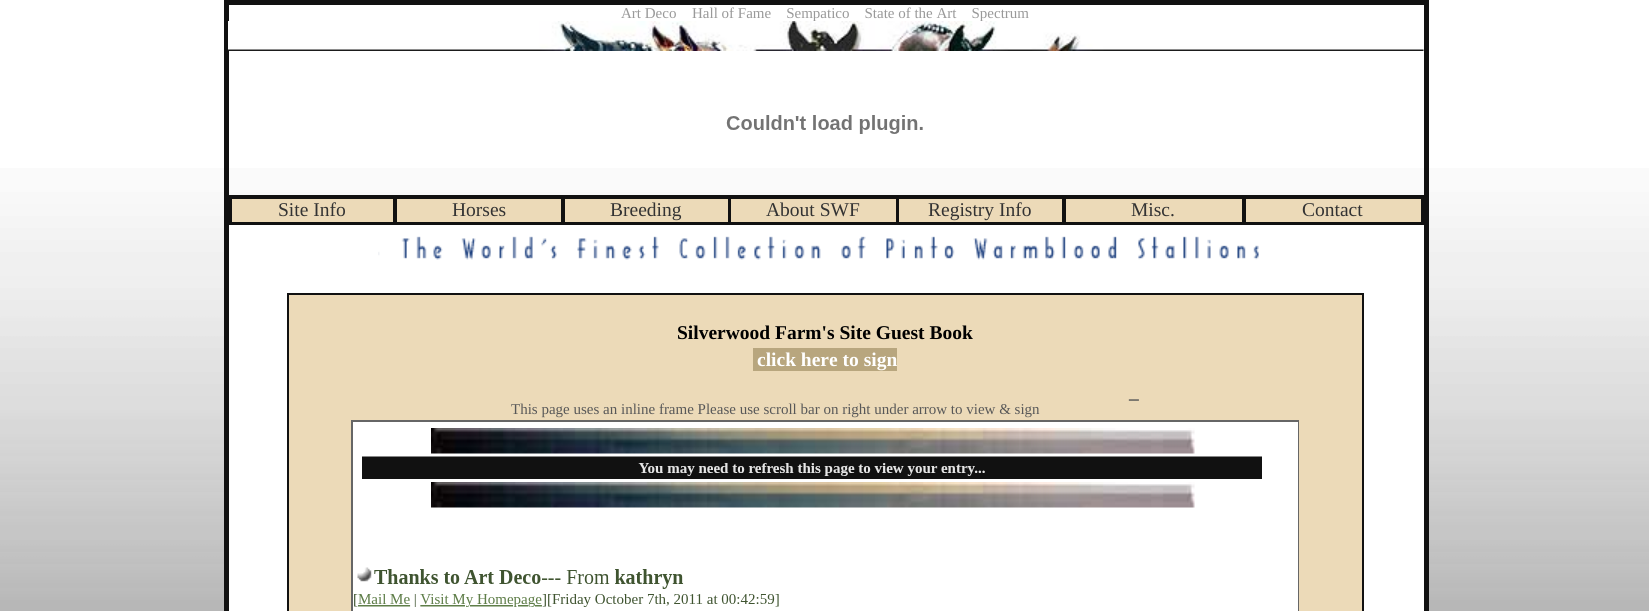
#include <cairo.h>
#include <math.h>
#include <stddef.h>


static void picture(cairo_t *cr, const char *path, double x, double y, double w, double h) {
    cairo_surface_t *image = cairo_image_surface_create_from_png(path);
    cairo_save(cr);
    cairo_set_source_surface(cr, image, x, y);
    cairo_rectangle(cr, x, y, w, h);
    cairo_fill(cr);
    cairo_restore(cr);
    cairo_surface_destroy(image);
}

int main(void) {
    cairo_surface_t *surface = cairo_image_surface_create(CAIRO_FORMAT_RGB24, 1649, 611);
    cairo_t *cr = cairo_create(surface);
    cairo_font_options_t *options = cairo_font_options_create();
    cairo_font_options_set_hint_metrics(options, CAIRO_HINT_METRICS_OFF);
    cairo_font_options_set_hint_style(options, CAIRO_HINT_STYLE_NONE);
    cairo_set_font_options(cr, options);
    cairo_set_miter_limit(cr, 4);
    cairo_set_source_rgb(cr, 1, 1, 1);
    cairo_paint(cr);
    picture(cr, "img1.png", 0, 168, 1649, 443);
    cairo_set_source_rgb(cr, 0.067, 0.067, 0.067);
    cairo_rectangle(cr, 224, 0, 1204, 5);
    cairo_fill(cr);
    cairo_rectangle(cr, 1424, 0, 5, 611);
    cairo_fill(cr);
    cairo_rectangle(cr, 228, 195, 1196, 2);
    cairo_fill(cr);
    cairo_rectangle(cr, 1422, 195, 2, 30);
    cairo_fill(cr);
    cairo_rectangle(cr, 228, 224, 1196, 1);
    cairo_fill(cr);
    cairo_rectangle(cr, 224, 0, 5, 611);
    cairo_fill(cr);
    cairo_select_font_face(cr, "Liberation Serif", CAIRO_FONT_SLANT_NORMAL, CAIRO_FONT_WEIGHT_NORMAL);
    cairo_set_font_size(cr, 15);
    cairo_set_source_rgb(cr, 0.6, 0.6, 0.6);
    cairo_move_to(cr, 621, 18);
    cairo_show_text(cr, "Art Deco");
    cairo_move_to(cr, 692, 18);
    cairo_show_text(cr, "Hall of Fame    Sempatico    State of the Art    Spectrum");
    picture(cr, "img2.png", 228, 21, 1196, 30);
    picture(cr, "img3.png", 726, 115, 197, 19);
    cairo_set_source_rgb(cr, 0.067, 0.067, 0.067);
    cairo_rectangle(cr, 229, 195, 1, 30);
    cairo_fill(cr);
    cairo_set_source_rgb(cr, 0.922, 0.855, 0.722);
    cairo_rectangle(cr, 232, 199, 161, 23);
    cairo_fill(cr);
    cairo_set_source_rgb(cr, 0.067, 0.067, 0.067);
    cairo_rectangle(cr, 230, 197, 1192, 2);
    cairo_fill(cr);
    cairo_rectangle(cr, 393, 197, 2, 27);
    cairo_fill(cr);
    cairo_rectangle(cr, 230, 222, 165, 2);
    cairo_fill(cr);
    cairo_rectangle(cr, 230, 197, 2, 27);
    cairo_fill(cr);
    cairo_set_font_size(cr, 19.5);
    cairo_set_source_rgb(cr, 0.2, 0.2, 0.2);
    cairo_move_to(cr, 278, 216);
    cairo_show_text(cr, "Site Info");
    cairo_set_source_rgb(cr, 0.922, 0.855, 0.722);
    cairo_rectangle(cr, 397, 199, 164, 23);
    cairo_fill(cr);
    cairo_set_source_rgb(cr, 0.067, 0.067, 0.067);
    cairo_rectangle(cr, 561, 197, 2, 27);
    cairo_fill(cr);
    cairo_rectangle(cr, 395, 222, 168, 2);
    cairo_fill(cr);
    cairo_rectangle(cr, 395, 197, 2, 27);
    cairo_fill(cr);
    cairo_set_source_rgb(cr, 0.2, 0.2, 0.2);
    cairo_move_to(cr, 452, 216);
    cairo_show_text(cr, "Horses");
    cairo_set_source_rgb(cr, 0.922, 0.855, 0.722);
    cairo_rectangle(cr, 565, 199, 163, 23);
    cairo_fill(cr);
    cairo_set_source_rgb(cr, 0.067, 0.067, 0.067);
    cairo_rectangle(cr, 728, 197, 1, 27);
    cairo_fill(cr);
    cairo_rectangle(cr, 563, 222, 166, 2);
    cairo_fill(cr);
    cairo_rectangle(cr, 563, 197, 2, 27);
    cairo_fill(cr);
    cairo_set_source_rgb(cr, 0.2, 0.2, 0.2);
    cairo_move_to(cr, 610, 216);
    cairo_show_text(cr, "Breeding");
    cairo_set_source_rgb(cr, 0.922, 0.855, 0.722);
    cairo_rectangle(cr, 731, 199, 165, 23);
    cairo_fill(cr);
    cairo_set_source_rgb(cr, 0.067, 0.067, 0.067);
    cairo_rectangle(cr, 896, 197, 1, 27);
    cairo_fill(cr);
    cairo_rectangle(cr, 729, 222, 168, 2);
    cairo_fill(cr);
    cairo_rectangle(cr, 729, 197, 2, 27);
    cairo_fill(cr);
    cairo_set_source_rgb(cr, 0.2, 0.2, 0.2);
    cairo_move_to(cr, 766, 216);
    cairo_show_text(cr, "About SWF");
    cairo_set_source_rgb(cr, 0.922, 0.855, 0.722);
    cairo_rectangle(cr, 899, 199, 163, 23);
    cairo_fill(cr);
    cairo_set_source_rgb(cr, 0.067, 0.067, 0.067);
    cairo_rectangle(cr, 1062, 197, 2, 27);
    cairo_fill(cr);
    cairo_rectangle(cr, 897, 222, 167, 2);
    cairo_fill(cr);
    cairo_rectangle(cr, 897, 197, 2, 27);
    cairo_fill(cr);
    cairo_set_source_rgb(cr, 0.2, 0.2, 0.2);
    cairo_move_to(cr, 928, 216);
    cairo_show_text(cr, "Registry Info");
    cairo_set_source_rgb(cr, 0.922, 0.855, 0.722);
    cairo_rectangle(cr, 1066, 199, 176, 23);
    cairo_fill(cr);
    cairo_set_source_rgb(cr, 0.067, 0.067, 0.067);
    cairo_rectangle(cr, 1242, 197, 2, 27);
    cairo_fill(cr);
    cairo_rectangle(cr, 1064, 222, 180, 2);
    cairo_fill(cr);
    cairo_rectangle(cr, 1064, 197, 2, 27);
    cairo_fill(cr);
    cairo_set_source_rgb(cr, 0.2, 0.2, 0.2);
    cairo_move_to(cr, 1131, 216);
    cairo_show_text(cr, "Misc.");
    cairo_set_source_rgb(cr, 0.922, 0.855, 0.722);
    cairo_rectangle(cr, 1246, 199, 175, 23);
    cairo_fill(cr);
    cairo_set_source_rgb(cr, 0.067, 0.067, 0.067);
    cairo_rectangle(cr, 1421, 197, 1, 27);
    cairo_fill(cr);
    cairo_rectangle(cr, 1244, 222, 178, 2);
    cairo_fill(cr);
    cairo_rectangle(cr, 1244, 197, 2, 27);
    cairo_fill(cr);
    cairo_set_source_rgb(cr, 0.2, 0.2, 0.2);
    cairo_move_to(cr, 1302, 216);
    cairo_show_text(cr, "Contact");
    cairo_set_source_rgb(cr, 1, 1, 1);
    cairo_rectangle(cr, 229, 225, 1195, 386);
    cairo_fill(cr);
    picture(cr, "img4.png", 378, 236, 881, 24);
    cairo_set_source_rgb(cr, 0.922, 0.855, 0.722);
    cairo_rectangle(cr, 289, 295, 1073, 316);
    cairo_fill(cr);
    cairo_set_source_rgb(cr, 0.067, 0.067, 0.067);
    cairo_rectangle(cr, 287, 293, 1077, 2);
    cairo_fill(cr);
    cairo_rectangle(cr, 1362, 293, 2, 318);
    cairo_fill(cr);
    cairo_rectangle(cr, 287, 293, 2, 318);
    cairo_fill(cr);
    cairo_select_font_face(cr, "Liberation Serif", CAIRO_FONT_SLANT_NORMAL, CAIRO_FONT_WEIGHT_BOLD);
    cairo_set_source_rgb(cr, 0, 0, 0);
    cairo_move_to(cr, 677, 339);
    cairo_show_text(cr, "Silverwood Farm's Site Guest Book");
    cairo_set_source_rgb(cr, 0.722, 0.651, 0.494);
    cairo_rectangle(cr, 753, 348, 144, 23);
    cairo_fill(cr);
    cairo_set_source_rgb(cr, 1, 1, 1);
    cairo_move_to(cr, 757, 366);
    cairo_show_text(cr, "click here to sign");
    cairo_set_source_rgb(cr, 0.345, 0.345, 0.345);
    cairo_move_to(cr, 1129, 414);
    cairo_show_text(cr, "¯");
    cairo_select_font_face(cr, "Liberation Serif", CAIRO_FONT_SLANT_NORMAL, CAIRO_FONT_WEIGHT_NORMAL);
    cairo_set_font_size(cr, 15);
    cairo_move_to(cr, 511, 414);
    cairo_show_text(cr, "This page uses an inline frame Please use scroll bar on right under arrow to view & sign");
    cairo_rectangle(cr, 352, 421, 946, 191);
    cairo_set_source_rgb(cr, 0.4, 0.4, 0.4);
    cairo_stroke(cr);
    picture(cr, "img5.png", 353, 422, 945, 189);
    cairo_surface_write_to_png(surface, "page.png");
    cairo_font_options_destroy(options);
    cairo_destroy(cr);
    cairo_surface_destroy(surface);
    return 0;
}
